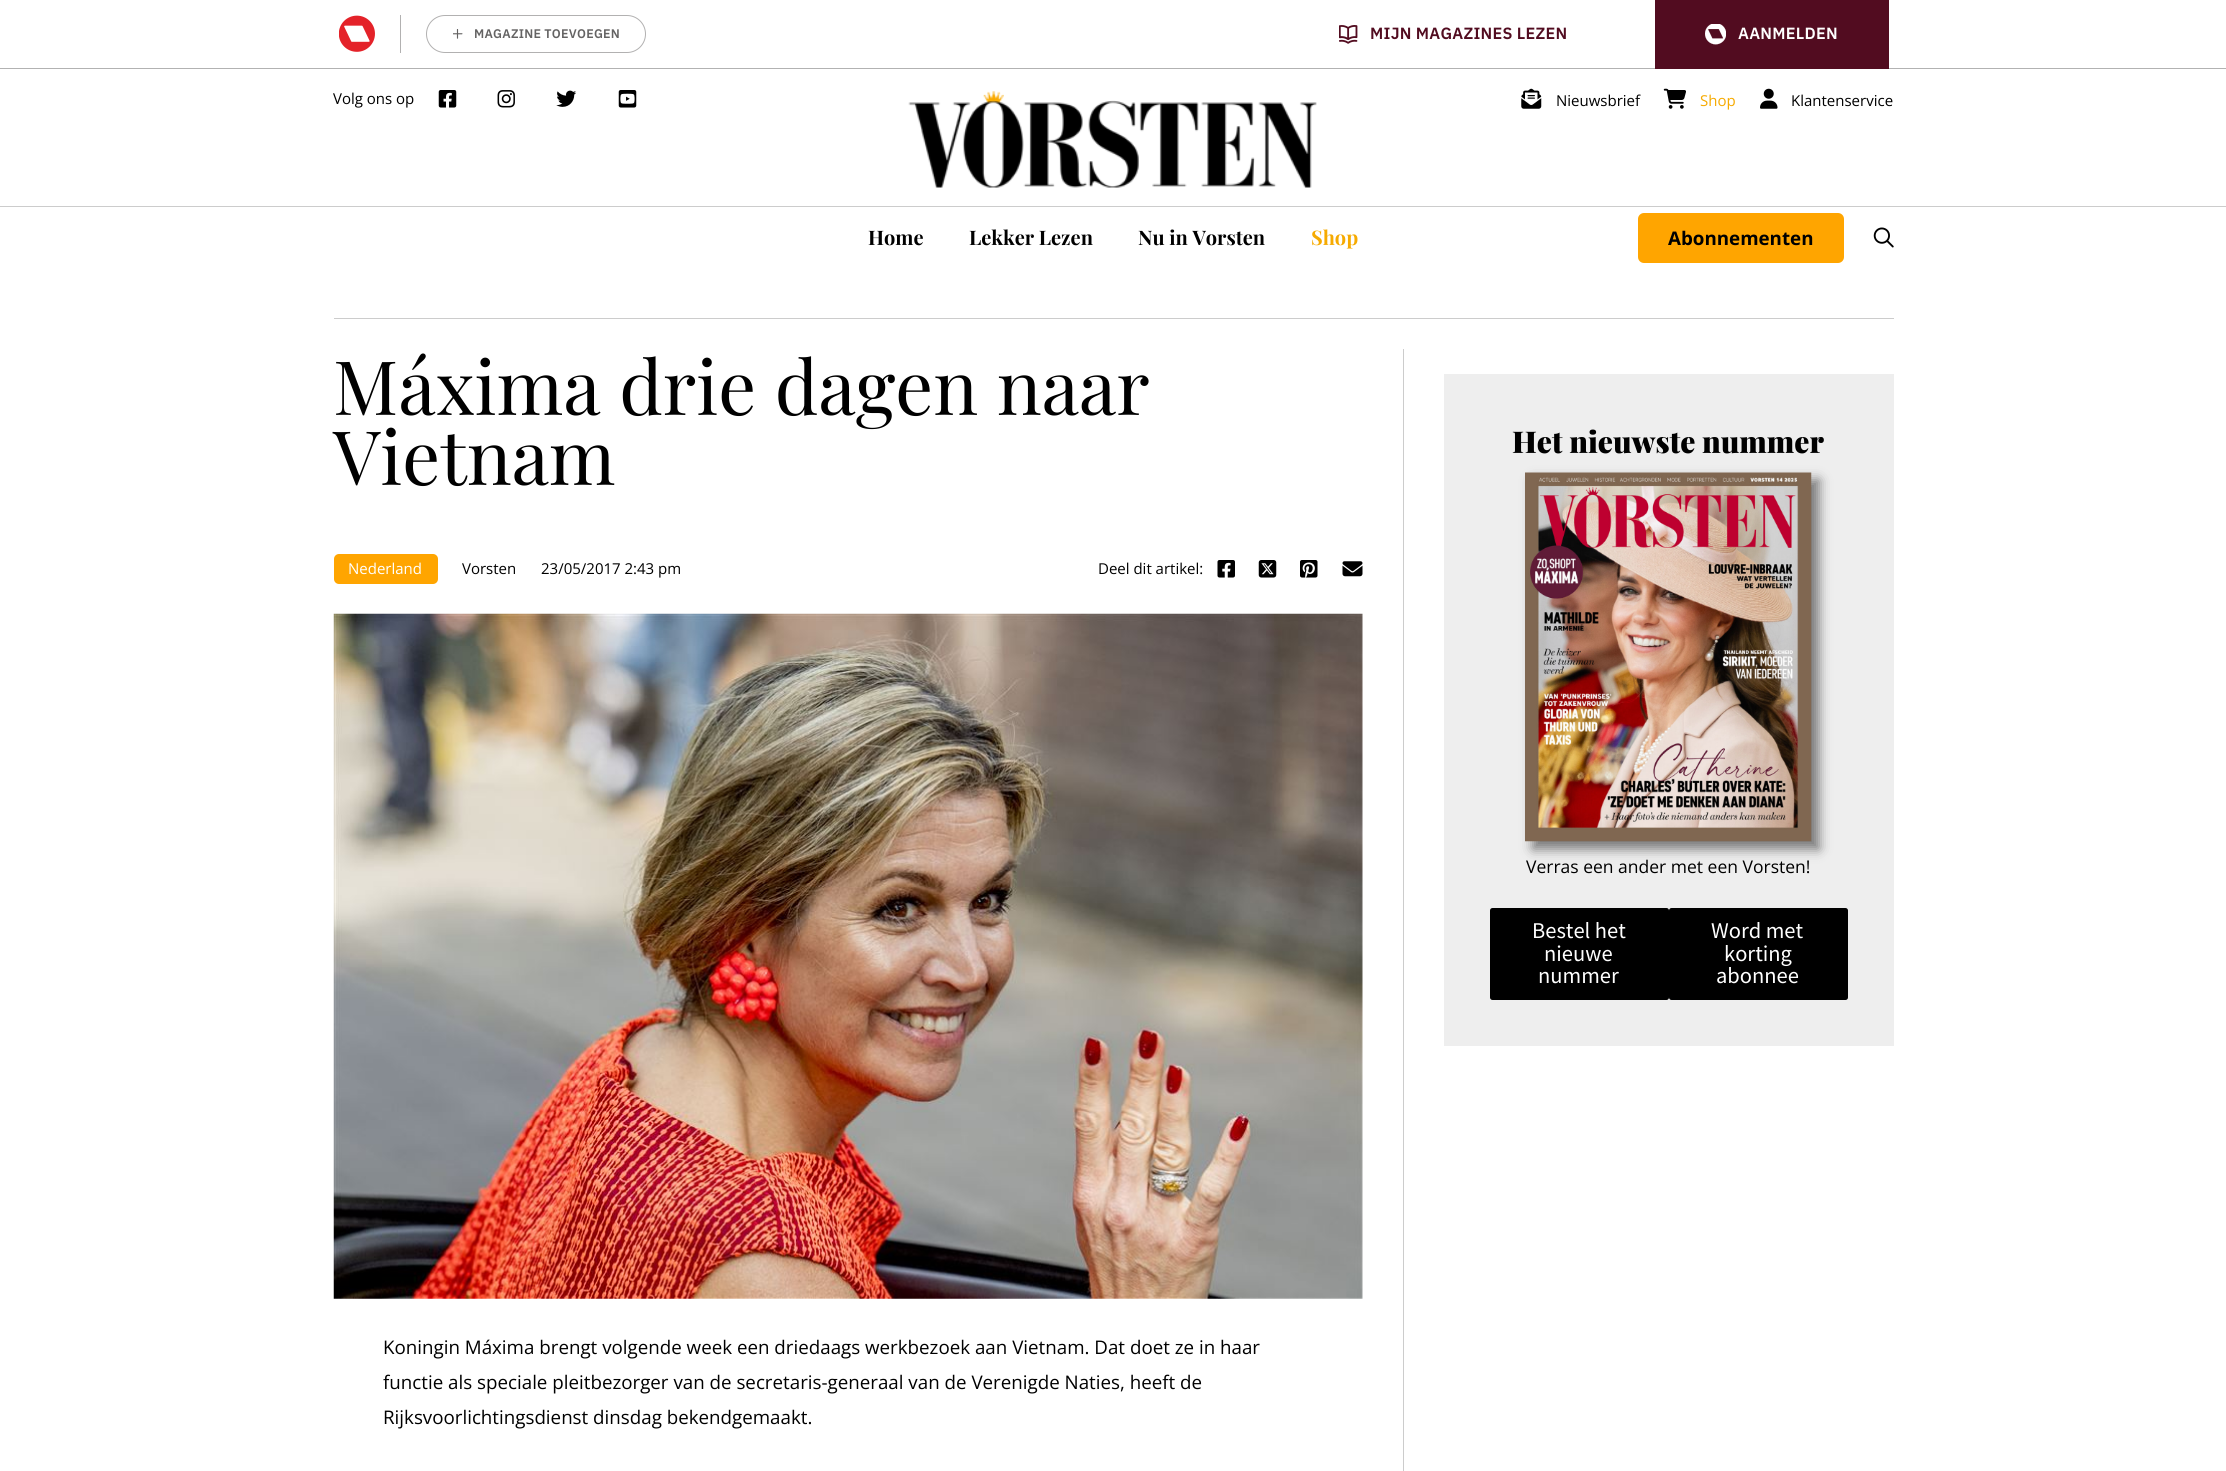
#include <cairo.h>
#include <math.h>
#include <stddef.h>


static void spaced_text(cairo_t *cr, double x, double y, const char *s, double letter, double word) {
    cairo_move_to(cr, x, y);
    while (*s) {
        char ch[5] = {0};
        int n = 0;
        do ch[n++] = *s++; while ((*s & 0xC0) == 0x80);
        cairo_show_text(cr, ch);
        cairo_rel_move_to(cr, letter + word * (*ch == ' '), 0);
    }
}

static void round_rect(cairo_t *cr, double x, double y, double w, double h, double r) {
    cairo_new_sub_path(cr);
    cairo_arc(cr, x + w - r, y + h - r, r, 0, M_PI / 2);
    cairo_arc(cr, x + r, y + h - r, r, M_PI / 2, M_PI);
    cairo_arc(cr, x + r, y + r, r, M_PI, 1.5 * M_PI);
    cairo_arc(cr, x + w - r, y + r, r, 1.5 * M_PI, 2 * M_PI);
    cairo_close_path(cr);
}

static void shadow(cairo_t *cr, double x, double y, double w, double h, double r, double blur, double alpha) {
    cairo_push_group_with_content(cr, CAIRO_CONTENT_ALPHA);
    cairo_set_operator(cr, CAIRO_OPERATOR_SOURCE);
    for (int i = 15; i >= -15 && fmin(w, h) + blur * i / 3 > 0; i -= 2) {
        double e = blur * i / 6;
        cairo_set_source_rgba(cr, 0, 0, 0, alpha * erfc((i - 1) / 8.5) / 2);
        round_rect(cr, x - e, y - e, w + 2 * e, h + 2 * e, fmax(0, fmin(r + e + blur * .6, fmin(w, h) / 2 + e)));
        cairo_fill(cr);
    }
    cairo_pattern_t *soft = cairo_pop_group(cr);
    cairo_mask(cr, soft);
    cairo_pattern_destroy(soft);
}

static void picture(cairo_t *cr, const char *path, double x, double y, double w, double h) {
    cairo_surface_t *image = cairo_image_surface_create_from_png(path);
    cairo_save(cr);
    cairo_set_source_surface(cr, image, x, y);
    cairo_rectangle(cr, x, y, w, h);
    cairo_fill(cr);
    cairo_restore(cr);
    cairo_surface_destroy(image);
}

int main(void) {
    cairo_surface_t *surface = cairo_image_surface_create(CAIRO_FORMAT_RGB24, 2226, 1471);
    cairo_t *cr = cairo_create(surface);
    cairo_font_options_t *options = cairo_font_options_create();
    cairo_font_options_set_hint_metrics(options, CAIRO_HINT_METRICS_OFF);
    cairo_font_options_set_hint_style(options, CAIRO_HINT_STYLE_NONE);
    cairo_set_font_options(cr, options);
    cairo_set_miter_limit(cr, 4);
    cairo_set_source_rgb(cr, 1, 1, 1);
    cairo_paint(cr);
    cairo_set_source_rgb(cr, 0.698, 0.698, 0.698);
    cairo_rectangle(cr, 0, 68, 2226, 1);
    cairo_fill(cr);
    cairo_set_source_rgb(cr, 0.698, 0.694, 0.694);
    cairo_rectangle(cr, 400, 15, 1, 38);
    cairo_fill(cr);
    picture(cr, "img1.png", 339, 15, 36, 37);
    round_rect(cr, 426.5, 15.5, 219, 37, 18.5);
    cairo_set_line_width(cr, 1);
    cairo_stroke(cr);
    picture(cr, "img2.png", 453, 29, 10, 10);
    cairo_select_font_face(cr, "IBM Plex Sans SemiBold", CAIRO_FONT_SLANT_NORMAL, CAIRO_FONT_WEIGHT_NORMAL);
    cairo_set_font_size(cr, 12.5);
    cairo_set_source_rgb(cr, 0.392, 0.388, 0.388);
    spaced_text(cr, 474, 38, "MAGAZINE TOEVOEGEN", 0.25, 0);
    picture(cr, "img3.png", 1339, 25, 19, 19);
    cairo_set_font_size(cr, 16.25);
    cairo_set_source_rgb(cr, 0.322, 0.047, 0.125);
    spaced_text(cr, 1370, 39, "MIJN MAGAZINES LEZEN", 0.25, 0);
    cairo_rectangle(cr, 1655, 0, 234, 69);
    cairo_fill(cr);
    picture(cr, "img4.png", 1705, 24, 21, 21);
    cairo_set_source_rgb(cr, 1, 1, 1);
    spaced_text(cr, 1738, 39, "AANMELDEN", 0.25, 0);
    cairo_set_source_rgb(cr, 0.8, 0.8, 0.8);
    cairo_rectangle(cr, 0, 206, 2226, 1);
    cairo_fill(cr);
    cairo_select_font_face(cr, "Open Sans", CAIRO_FONT_SLANT_NORMAL, CAIRO_FONT_WEIGHT_NORMAL);
    cairo_set_font_size(cr, 15);
    cairo_set_source_rgb(cr, 0, 0, 0);
    cairo_move_to(cr, 333, 104);
    cairo_show_text(cr, "Volg ons op");
    picture(cr, "img5.png", 438, 90, 19, 18);
    picture(cr, "img6.png", 497, 90, 18, 18);
    picture(cr, "img7.png", 556, 90, 21, 17);
    picture(cr, "img8.png", 618, 90, 19, 18);
    picture(cr, "img9.png", 908, 91, 409, 97);
    picture(cr, "img10.png", 1521, 88, 21, 21);
    cairo_move_to(cr, 1556, 106);
    cairo_show_text(cr, "Nieuwsbrief");
    picture(cr, "img11.png", 1663, 88, 23, 21);
    cairo_set_source_rgb(cr, 0.961, 0.667, 0);
    cairo_move_to(cr, 1700, 106);
    cairo_show_text(cr, "Shop");
    picture(cr, "img12.png", 1760, 88, 18, 21);
    cairo_set_source_rgb(cr, 0, 0, 0);
    cairo_move_to(cr, 1791, 106);
    cairo_show_text(cr, "Klantenservice");
    cairo_select_font_face(cr, "Playfair Display", CAIRO_FONT_SLANT_NORMAL, CAIRO_FONT_WEIGHT_BOLD);
    cairo_set_font_size(cr, 20);
    cairo_move_to(cr, 868, 245);
    cairo_show_text(cr, "Home");
    cairo_move_to(cr, 969, 245);
    cairo_show_text(cr, "Lekker Lezen");
    cairo_move_to(cr, 1138, 245);
    cairo_show_text(cr, "Nu in Vorsten");
    cairo_set_source_rgb(cr, 0.961, 0.667, 0);
    cairo_move_to(cr, 1311, 245);
    cairo_show_text(cr, "Shop");
    cairo_set_source_rgb(cr, 1, 0.647, 0);
    round_rect(cr, 1638, 213, 206, 50, 6);
    cairo_fill(cr);
    cairo_select_font_face(cr, "Open Sans", CAIRO_FONT_SLANT_NORMAL, CAIRO_FONT_WEIGHT_BOLD);
    cairo_set_font_size(cr, 18.75);
    cairo_set_source_rgb(cr, 0, 0, 0);
    cairo_move_to(cr, 1668, 245);
    cairo_show_text(cr, "Abonnementen");
    picture(cr, "img13.png", 1873, 227, 21, 21);
    cairo_set_source_rgb(cr, 0.8, 0.8, 0.8);
    cairo_rectangle(cr, 334, 318, 1560, 1);
    cairo_fill(cr);
    cairo_rectangle(cr, 1403, 349, 1, 1122);
    cairo_fill(cr);
    cairo_select_font_face(cr, "Playfair Display", CAIRO_FONT_SLANT_NORMAL, CAIRO_FONT_WEIGHT_NORMAL);
    cairo_set_font_size(cr, 75);
    cairo_set_source_rgb(cr, 0, 0, 0);
    cairo_move_to(cr, 333, 415);
    cairo_show_text(cr, "Máxima drie dagen naar");
    cairo_move_to(cr, 333, 485);
    cairo_show_text(cr, "Vietnam");
    cairo_set_source_rgb(cr, 1, 0.647, 0);
    round_rect(cr, 334, 554, 104, 30, 5);
    cairo_fill(cr);
    cairo_select_font_face(cr, "Open Sans", CAIRO_FONT_SLANT_NORMAL, CAIRO_FONT_WEIGHT_NORMAL);
    cairo_set_font_size(cr, 15);
    cairo_set_source_rgb(cr, 1, 1, 1);
    cairo_move_to(cr, 348, 574);
    cairo_show_text(cr, "Nederland");
    cairo_set_source_rgb(cr, 0, 0, 0);
    cairo_move_to(cr, 462, 574);
    cairo_show_text(cr, "Vorsten");
    cairo_move_to(cr, 541, 574);
    cairo_show_text(cr, "23/05/2017 2:43 pm");
    cairo_move_to(cr, 1098, 574);
    cairo_show_text(cr, "Deel dit artikel:");
    picture(cr, "img14.png", 1217, 560, 18, 18);
    picture(cr, "img15.png", 1258, 560, 19, 18);
    picture(cr, "img16.png", 1300, 560, 18, 18);
    picture(cr, "img17.png", 1342, 561, 21, 16);
    picture(cr, "img18.png", 333, 613, 1030, 686);
    cairo_set_font_size(cr, 18.75);
    cairo_move_to(cr, 383, 1354);
    cairo_show_text(cr, "Koningin Máxima brengt volgende week een driedaags werkbezoek aan Vietnam. Dat doet ze in haar");
    cairo_move_to(cr, 383, 1389);
    cairo_show_text(cr, "functie als speciale pleitbezorger van de secretaris-generaal van de Verenigde Naties, heeft de");
    cairo_move_to(cr, 383, 1424);
    cairo_show_text(cr, "Rijksvoorlichtingsdienst dinsdag bekendgemaakt.");
    cairo_set_source_rgb(cr, 0.933, 0.933, 0.933);
    cairo_rectangle(cr, 1444, 374, 450, 672);
    cairo_fill(cr);
    cairo_select_font_face(cr, "Playfair Display Black", CAIRO_FONT_SLANT_NORMAL, CAIRO_FONT_WEIGHT_NORMAL);
    cairo_set_font_size(cr, 30);
    cairo_set_source_rgb(cr, 0, 0, 0);
    cairo_move_to(cr, 1512, 453);
    cairo_show_text(cr, "Het nieuwste nummer");
    cairo_set_source_rgb(cr, 0, 0, 0);
    shadow(cr, 1533, 480, 286, 369, 0, 6, 0.5);
    picture(cr, "img19.png", 1525, 472, 287, 370);
    cairo_select_font_face(cr, "Open Sans", CAIRO_FONT_SLANT_NORMAL, CAIRO_FONT_WEIGHT_NORMAL);
    cairo_set_font_size(cr, 17.5);
    cairo_set_source_rgb(cr, 0, 0, 0);
    cairo_move_to(cr, 1526, 873);
    cairo_show_text(cr, "Verras een ander met een Vorsten!");
    round_rect(cr, 1490, 908, 179, 92, 2.5);
    cairo_fill(cr);
    cairo_select_font_face(cr, "Source Sans Pro", CAIRO_FONT_SLANT_NORMAL, CAIRO_FONT_WEIGHT_NORMAL);
    cairo_set_font_size(cr, 22.5);
    cairo_set_source_rgb(cr, 1, 1, 1);
    cairo_move_to(cr, 1532, 938);
    cairo_show_text(cr, "Bestel het");
    cairo_move_to(cr, 1544, 961);
    cairo_show_text(cr, "nieuwe");
    cairo_move_to(cr, 1538, 983);
    cairo_show_text(cr, "nummer");
    cairo_set_source_rgb(cr, 0, 0, 0);
    round_rect(cr, 1669, 908, 179, 92, 2.5);
    cairo_fill(cr);
    cairo_set_source_rgb(cr, 1, 1, 1);
    cairo_move_to(cr, 1711, 938);
    cairo_show_text(cr, "Word met");
    cairo_move_to(cr, 1724, 961);
    cairo_show_text(cr, "korting");
    cairo_move_to(cr, 1716, 983);
    cairo_show_text(cr, "abonnee");
    cairo_surface_write_to_png(surface, "page.png");
    cairo_font_options_destroy(options);
    cairo_destroy(cr);
    cairo_surface_destroy(surface);
    return 0;
}
